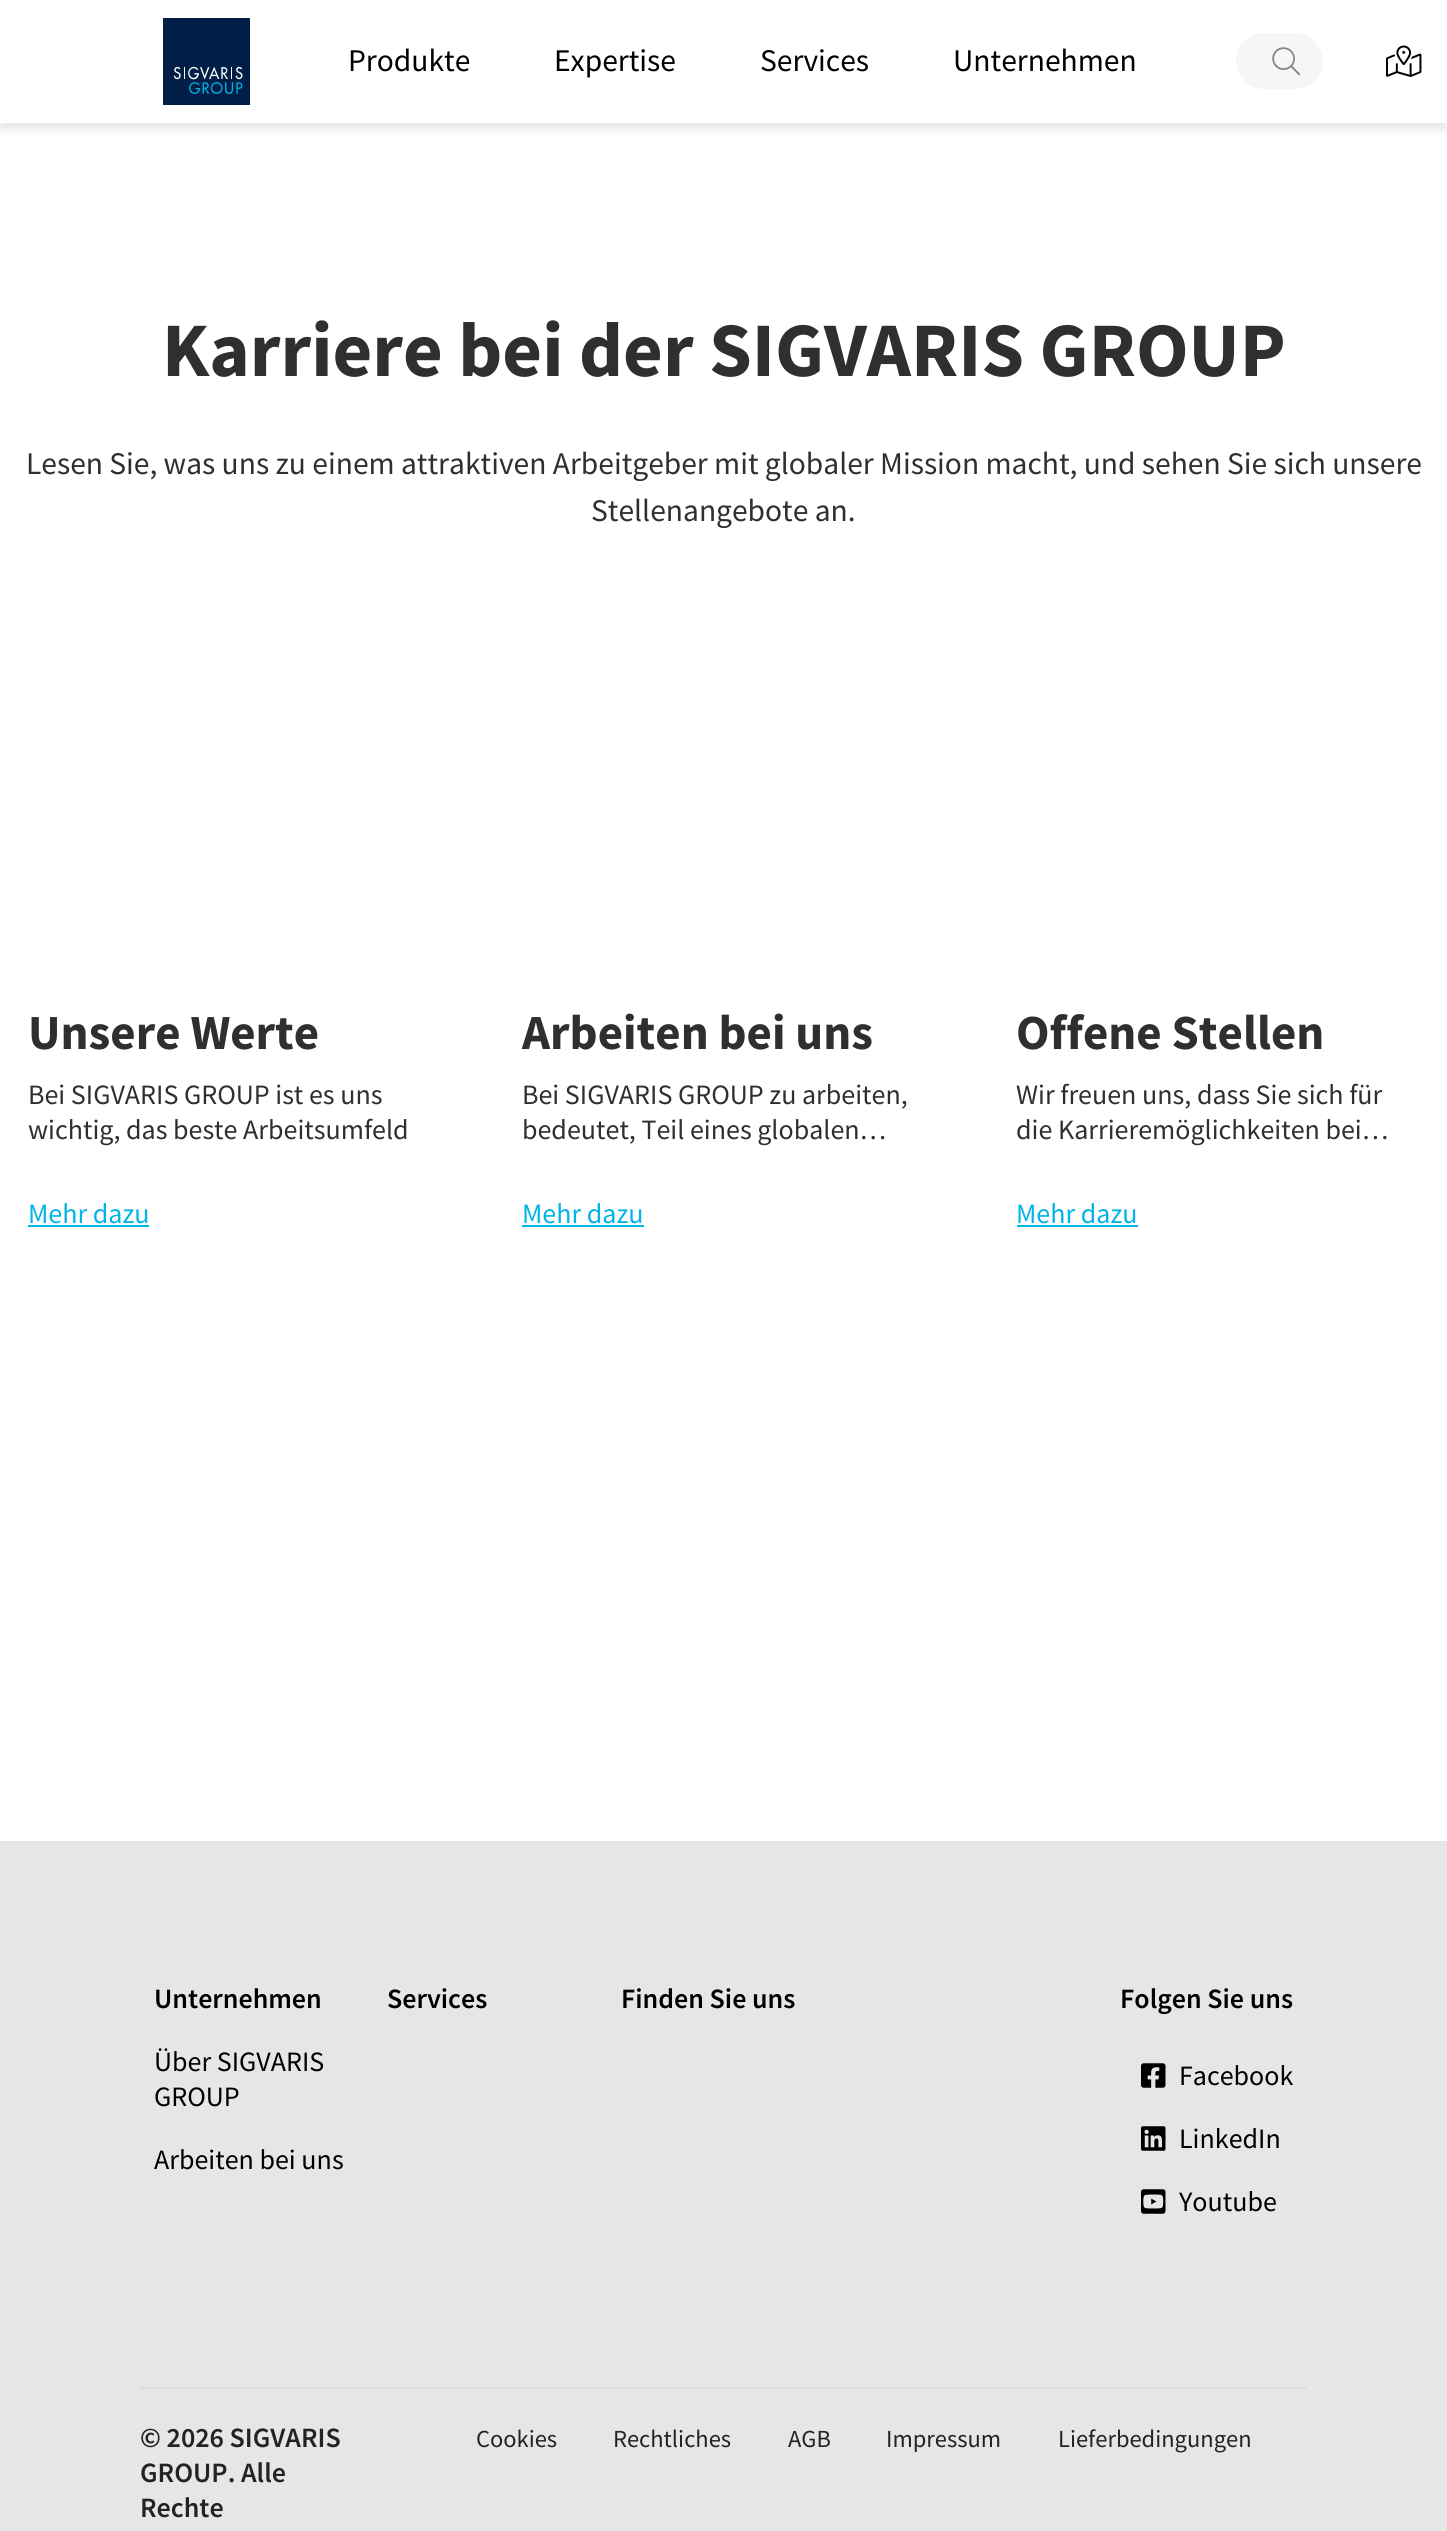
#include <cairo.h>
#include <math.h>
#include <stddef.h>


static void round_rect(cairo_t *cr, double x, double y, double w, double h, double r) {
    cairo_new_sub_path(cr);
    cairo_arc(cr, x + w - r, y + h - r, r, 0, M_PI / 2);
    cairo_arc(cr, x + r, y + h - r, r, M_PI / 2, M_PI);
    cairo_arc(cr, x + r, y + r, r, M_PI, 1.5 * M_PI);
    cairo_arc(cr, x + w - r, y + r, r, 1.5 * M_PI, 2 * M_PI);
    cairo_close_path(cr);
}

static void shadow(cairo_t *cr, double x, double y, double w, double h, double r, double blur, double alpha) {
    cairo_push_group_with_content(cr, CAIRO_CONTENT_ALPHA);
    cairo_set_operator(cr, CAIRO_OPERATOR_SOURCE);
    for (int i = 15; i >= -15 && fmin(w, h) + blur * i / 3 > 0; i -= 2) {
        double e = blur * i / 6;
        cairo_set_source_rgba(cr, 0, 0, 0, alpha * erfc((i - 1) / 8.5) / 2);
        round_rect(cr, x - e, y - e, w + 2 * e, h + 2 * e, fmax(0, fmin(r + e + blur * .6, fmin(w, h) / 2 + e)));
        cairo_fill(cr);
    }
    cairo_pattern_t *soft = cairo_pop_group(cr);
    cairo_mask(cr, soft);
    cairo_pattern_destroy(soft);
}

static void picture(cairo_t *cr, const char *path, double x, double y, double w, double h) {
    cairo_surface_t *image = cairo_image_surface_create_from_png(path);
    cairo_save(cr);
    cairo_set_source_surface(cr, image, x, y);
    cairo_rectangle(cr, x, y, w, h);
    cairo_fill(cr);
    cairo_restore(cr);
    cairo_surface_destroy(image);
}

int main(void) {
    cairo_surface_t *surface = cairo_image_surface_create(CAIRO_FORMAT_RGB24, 1447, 2531);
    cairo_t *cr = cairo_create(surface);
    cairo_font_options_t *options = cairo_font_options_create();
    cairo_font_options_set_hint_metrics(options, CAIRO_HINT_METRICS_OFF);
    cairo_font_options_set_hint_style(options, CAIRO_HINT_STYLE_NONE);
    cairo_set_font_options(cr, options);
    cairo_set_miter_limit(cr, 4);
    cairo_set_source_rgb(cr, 1, 1, 1);
    cairo_paint(cr);
    cairo_set_source_rgb(cr, 0, 0, 0);
    shadow(cr, 0, 7, 1447, 123, 0, 3.5, 0.09);
    cairo_set_source_rgb(cr, 1, 1, 1);
    cairo_rectangle(cr, 0, 3, 1447, 120);
    cairo_fill(cr);
    picture(cr, "img1.png", 163, 18, 87, 87);
    cairo_select_font_face(cr, "Source Sans Pro", CAIRO_FONT_SLANT_NORMAL, CAIRO_FONT_WEIGHT_NORMAL);
    cairo_set_font_size(cr, 31.5);
    cairo_set_source_rgb(cr, 0, 0, 0);
    cairo_move_to(cr, 348, 71);
    cairo_show_text(cr, "Produkte");
    cairo_move_to(cr, 554, 71);
    cairo_show_text(cr, "Expertise");
    cairo_move_to(cr, 760, 71);
    cairo_show_text(cr, "Services");
    cairo_move_to(cr, 953, 71);
    cairo_show_text(cr, "Unternehmen");
    cairo_set_source_rgb(cr, 0.961, 0.961, 0.961);
    round_rect(cr, 1236, 33, 87, 56, 28);
    cairo_fill(cr);
    picture(cr, "img2.png", 1272, 47, 29, 29);
    picture(cr, "img3.png", 1386, 45, 36, 32);
    cairo_select_font_face(cr, "Source Sans Pro", CAIRO_FONT_SLANT_NORMAL, CAIRO_FONT_WEIGHT_BOLD);
    cairo_set_font_size(cr, 77);
    cairo_set_source_rgb(cr, 0.184, 0.184, 0.184);
    cairo_move_to(cr, 162, 376);
    cairo_show_text(cr, "Karriere bei der SIGVARIS GROUP");
    cairo_select_font_face(cr, "Source Sans Pro", CAIRO_FONT_SLANT_NORMAL, CAIRO_FONT_WEIGHT_NORMAL);
    cairo_set_font_size(cr, 31.5);
    cairo_move_to(cr, 26, 474);
    cairo_show_text(cr, "Lesen Sie, was uns zu einem attraktiven Arbeitgeber mit globaler Mission macht, und sehen Sie sich unsere");
    cairo_move_to(cr, 591, 521);
    cairo_show_text(cr, "Stellenangebote an.");
    cairo_select_font_face(cr, "Source Sans Pro", CAIRO_FONT_SLANT_NORMAL, CAIRO_FONT_WEIGHT_BOLD);
    cairo_set_font_size(cr, 49);
    cairo_move_to(cr, 28, 1049);
    cairo_show_text(cr, "Unsere Werte");
    cairo_select_font_face(cr, "Source Sans Pro", CAIRO_FONT_SLANT_NORMAL, CAIRO_FONT_WEIGHT_NORMAL);
    cairo_set_font_size(cr, 28);
    cairo_move_to(cr, 28, 1104);
    cairo_show_text(cr, "Bei SIGVARIS GROUP ist es uns");
    cairo_move_to(cr, 28, 1139);
    cairo_show_text(cr, "wichtig, das beste Arbeitsumfeld");
    cairo_set_source_rgb(cr, 0, 0.706, 0.902);
    cairo_move_to(cr, 28, 1223);
    cairo_show_text(cr, "Mehr dazu");
    cairo_rectangle(cr, 28, 1225, 121, 2);
    cairo_fill(cr);
    cairo_select_font_face(cr, "Source Sans Pro", CAIRO_FONT_SLANT_NORMAL, CAIRO_FONT_WEIGHT_BOLD);
    cairo_set_font_size(cr, 49);
    cairo_set_source_rgb(cr, 0.184, 0.184, 0.184);
    cairo_move_to(cr, 522, 1049);
    cairo_show_text(cr, "Arbeiten bei uns");
    cairo_select_font_face(cr, "Source Sans Pro", CAIRO_FONT_SLANT_NORMAL, CAIRO_FONT_WEIGHT_NORMAL);
    cairo_set_font_size(cr, 28);
    cairo_move_to(cr, 522, 1104);
    cairo_show_text(cr, "Bei SIGVARIS GROUP zu arbeiten,");
    cairo_move_to(cr, 522, 1139);
    cairo_show_text(cr, "bedeutet, Teil eines globalen…");
    cairo_set_source_rgb(cr, 0, 0.706, 0.902);
    cairo_move_to(cr, 522, 1223);
    cairo_show_text(cr, "Mehr dazu");
    cairo_rectangle(cr, 522, 1225, 122, 2);
    cairo_fill(cr);
    cairo_select_font_face(cr, "Source Sans Pro", CAIRO_FONT_SLANT_NORMAL, CAIRO_FONT_WEIGHT_BOLD);
    cairo_set_font_size(cr, 49);
    cairo_set_source_rgb(cr, 0.184, 0.184, 0.184);
    cairo_move_to(cr, 1016, 1049);
    cairo_show_text(cr, "Offene Stellen");
    cairo_select_font_face(cr, "Source Sans Pro", CAIRO_FONT_SLANT_NORMAL, CAIRO_FONT_WEIGHT_NORMAL);
    cairo_set_font_size(cr, 28);
    cairo_move_to(cr, 1016, 1104);
    cairo_show_text(cr, "Wir freuen uns, dass Sie sich für");
    cairo_move_to(cr, 1016, 1139);
    cairo_show_text(cr, "die Karrieremöglichkeiten bei…");
    cairo_set_source_rgb(cr, 0, 0.706, 0.902);
    cairo_move_to(cr, 1016, 1223);
    cairo_show_text(cr, "Mehr dazu");
    cairo_rectangle(cr, 1017, 1225, 121, 2);
    cairo_fill(cr);
    cairo_set_source_rgb(cr, 0.902, 0.902, 0.902);
    cairo_rectangle(cr, 0, 1841, 1447, 690);
    cairo_fill(cr);
    cairo_select_font_face(cr, "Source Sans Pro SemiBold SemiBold", CAIRO_FONT_SLANT_NORMAL, CAIRO_FONT_WEIGHT_NORMAL);
    cairo_set_source_rgb(cr, 0, 0, 0);
    cairo_move_to(cr, 154, 2008);
    cairo_show_text(cr, "Unternehmen");
    cairo_select_font_face(cr, "Source Sans Pro", CAIRO_FONT_SLANT_NORMAL, CAIRO_FONT_WEIGHT_NORMAL);
    cairo_move_to(cr, 154, 2071);
    cairo_show_text(cr, "Über SIGVARIS");
    cairo_move_to(cr, 154, 2106);
    cairo_show_text(cr, "GROUP");
    cairo_move_to(cr, 154, 2169);
    cairo_show_text(cr, "Arbeiten bei uns");
    cairo_select_font_face(cr, "Source Sans Pro SemiBold SemiBold", CAIRO_FONT_SLANT_NORMAL, CAIRO_FONT_WEIGHT_NORMAL);
    cairo_move_to(cr, 387, 2008);
    cairo_show_text(cr, "Services");
    cairo_move_to(cr, 621, 2008);
    cairo_show_text(cr, "Finden Sie uns");
    cairo_move_to(cr, 1120, 2008);
    cairo_show_text(cr, "Folgen Sie uns");
    picture(cr, "img4.png", 1141, 2063, 25, 25);
    cairo_select_font_face(cr, "Source Sans Pro", CAIRO_FONT_SLANT_NORMAL, CAIRO_FONT_WEIGHT_NORMAL);
    cairo_move_to(cr, 1179, 2085);
    cairo_show_text(cr, "Facebook");
    picture(cr, "img5.png", 1141, 2126, 25, 25);
    cairo_move_to(cr, 1179, 2148);
    cairo_show_text(cr, "LinkedIn");
    picture(cr, "img6.png", 1141, 2189, 25, 25);
    cairo_move_to(cr, 1179, 2211);
    cairo_show_text(cr, "Youtube");
    cairo_set_source_rgb(cr, 0.867, 0.867, 0.867);
    cairo_rectangle(cr, 140, 2387, 1167, 2);
    cairo_fill(cr);
    cairo_select_font_face(cr, "Source Sans Pro SemiBold SemiBold", CAIRO_FONT_SLANT_NORMAL, CAIRO_FONT_WEIGHT_NORMAL);
    cairo_set_source_rgb(cr, 0.137, 0.137, 0.137);
    cairo_move_to(cr, 140, 2447);
    cairo_show_text(cr, "© 2026 SIGVARIS");
    cairo_move_to(cr, 140, 2482);
    cairo_show_text(cr, "GROUP. Alle");
    cairo_move_to(cr, 140, 2517);
    cairo_show_text(cr, "Rechte");
    cairo_select_font_face(cr, "Source Sans Pro", CAIRO_FONT_SLANT_NORMAL, CAIRO_FONT_WEIGHT_NORMAL);
    cairo_set_font_size(cr, 24.5);
    cairo_move_to(cr, 476, 2447);
    cairo_show_text(cr, "Cookies");
    cairo_move_to(cr, 613, 2447);
    cairo_show_text(cr, "Rechtliches");
    cairo_move_to(cr, 788, 2447);
    cairo_show_text(cr, "AGB");
    cairo_move_to(cr, 886, 2447);
    cairo_show_text(cr, "Impressum");
    cairo_move_to(cr, 1058, 2447);
    cairo_show_text(cr, "Lieferbedingungen");
    cairo_surface_write_to_png(surface, "page.png");
    cairo_font_options_destroy(options);
    cairo_destroy(cr);
    cairo_surface_destroy(surface);
    return 0;
}
